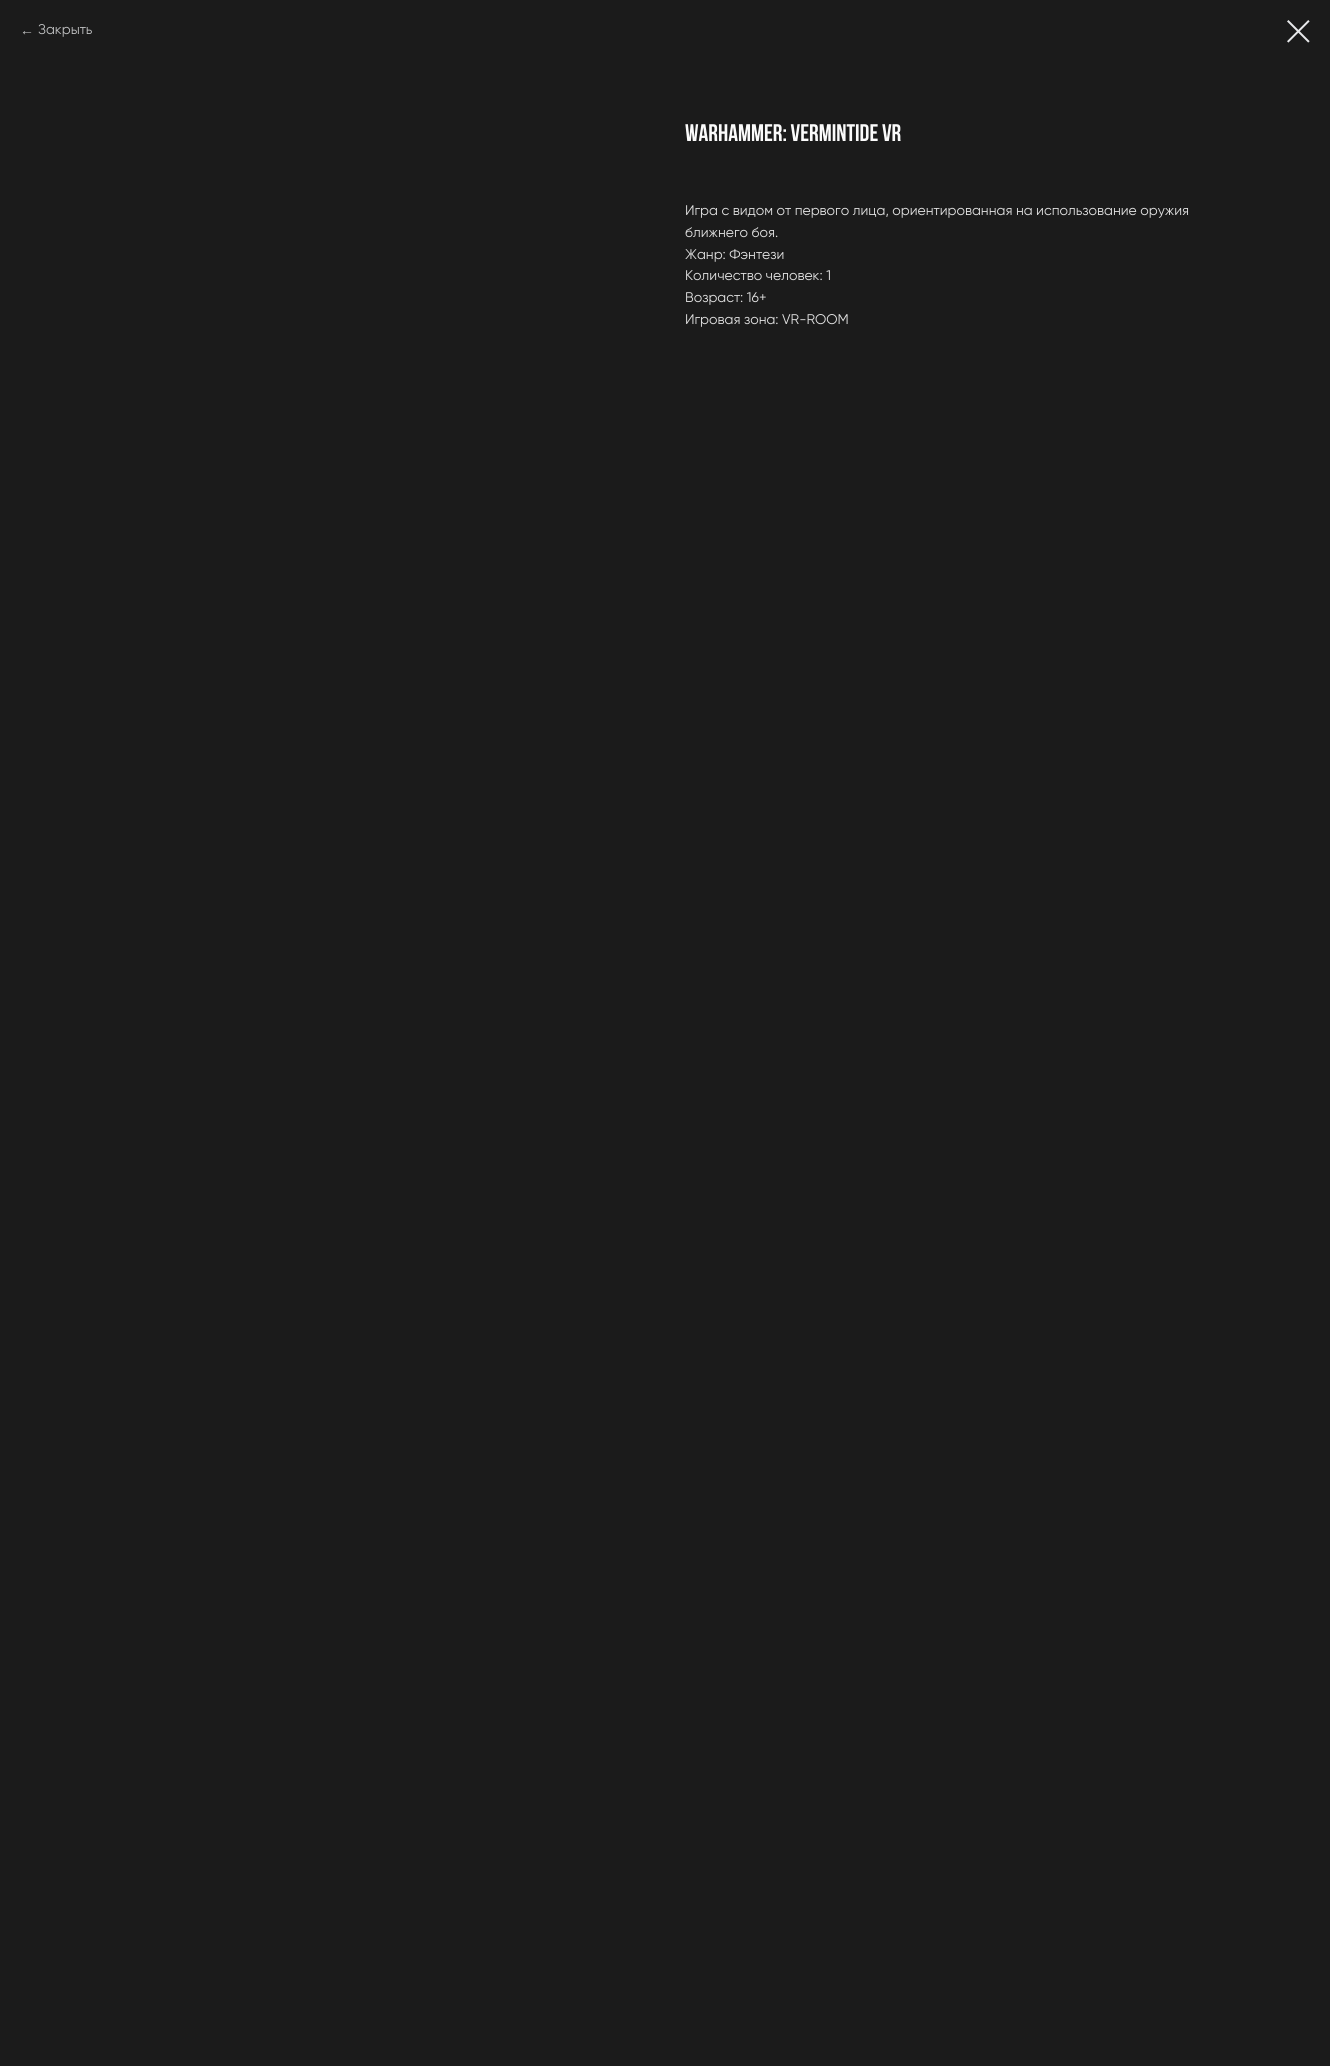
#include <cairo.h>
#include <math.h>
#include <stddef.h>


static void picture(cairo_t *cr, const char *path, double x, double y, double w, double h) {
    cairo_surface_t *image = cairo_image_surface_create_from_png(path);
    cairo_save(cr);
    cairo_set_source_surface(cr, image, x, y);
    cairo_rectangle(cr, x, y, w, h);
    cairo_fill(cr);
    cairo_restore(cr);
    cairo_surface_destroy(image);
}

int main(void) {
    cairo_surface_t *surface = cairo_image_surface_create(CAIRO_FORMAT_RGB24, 1330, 2066);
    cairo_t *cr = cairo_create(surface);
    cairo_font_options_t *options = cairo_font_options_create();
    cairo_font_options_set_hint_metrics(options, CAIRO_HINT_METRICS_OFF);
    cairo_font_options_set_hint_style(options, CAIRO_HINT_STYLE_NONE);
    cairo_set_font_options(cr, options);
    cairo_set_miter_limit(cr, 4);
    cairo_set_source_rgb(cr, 0.106, 0.106, 0.106);
    cairo_paint(cr);
    cairo_select_font_face(cr, "Liberation Sans", CAIRO_FONT_SLANT_NORMAL, CAIRO_FONT_WEIGHT_NORMAL);
    cairo_set_font_size(cr, 14);
    cairo_set_source_rgb(cr, 0.749, 0.753, 0.757);
    cairo_move_to(cr, 20, 35);
    cairo_show_text(cr, "←");
    cairo_select_font_face(cr, "Gilroy", CAIRO_FONT_SLANT_NORMAL, CAIRO_FONT_WEIGHT_NORMAL);
    cairo_move_to(cr, 38, 34);
    cairo_show_text(cr, "Закрыть");
    picture(cr, "img1.png", 1287, 20, 23, 23);
    cairo_select_font_face(cr, "Bebas Neue", CAIRO_FONT_SLANT_NORMAL, CAIRO_FONT_WEIGHT_BOLD);
    cairo_set_font_size(cr, 24);
    cairo_set_source_rgb(cr, 0.984, 0.984, 0.984);
    cairo_move_to(cr, 685, 141);
    cairo_show_text(cr, "Warhammer: Vermintide VR");
    cairo_select_font_face(cr, "Gilroy", CAIRO_FONT_SLANT_NORMAL, CAIRO_FONT_WEIGHT_NORMAL);
    cairo_set_font_size(cr, 14);
    cairo_set_source_rgb(cr, 0.878, 0.878, 0.878);
    cairo_move_to(cr, 685, 215);
    cairo_show_text(cr, "Игра с видом от первого лица, ориентированная на использование оружия");
    cairo_move_to(cr, 685, 237);
    cairo_show_text(cr, "ближнего боя.");
    cairo_move_to(cr, 685, 259);
    cairo_show_text(cr, "Жанр: Фэнтези");
    cairo_move_to(cr, 685, 280);
    cairo_show_text(cr, "Количество человек: 1");
    cairo_move_to(cr, 685, 302);
    cairo_show_text(cr, "Возраст: 16+");
    cairo_move_to(cr, 685, 324);
    cairo_show_text(cr, "Игровая зона: VR-ROOM");
    cairo_surface_write_to_png(surface, "page.png");
    cairo_font_options_destroy(options);
    cairo_destroy(cr);
    cairo_surface_destroy(surface);
    return 0;
}
